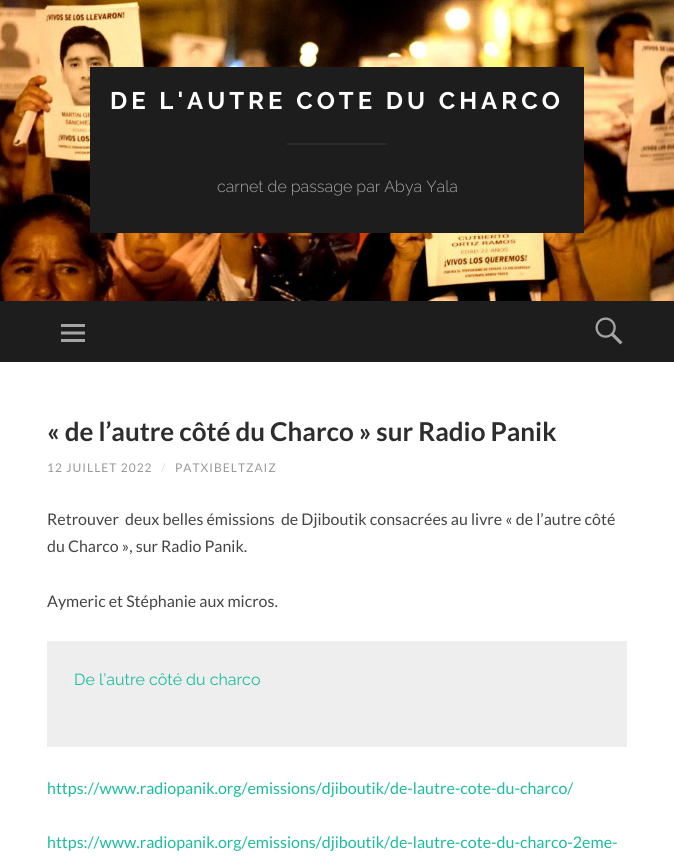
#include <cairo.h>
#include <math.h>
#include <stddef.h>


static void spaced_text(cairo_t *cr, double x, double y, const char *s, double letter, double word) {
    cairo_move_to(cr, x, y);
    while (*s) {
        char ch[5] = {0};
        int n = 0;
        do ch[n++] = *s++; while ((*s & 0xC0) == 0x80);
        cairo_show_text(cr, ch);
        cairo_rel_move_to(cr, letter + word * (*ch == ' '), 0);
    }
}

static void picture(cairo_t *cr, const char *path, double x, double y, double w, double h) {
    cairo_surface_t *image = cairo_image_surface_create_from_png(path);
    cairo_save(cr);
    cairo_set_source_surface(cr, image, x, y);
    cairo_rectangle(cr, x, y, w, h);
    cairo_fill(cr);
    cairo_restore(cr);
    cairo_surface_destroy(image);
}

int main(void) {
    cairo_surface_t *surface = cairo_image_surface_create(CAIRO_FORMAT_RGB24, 674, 858);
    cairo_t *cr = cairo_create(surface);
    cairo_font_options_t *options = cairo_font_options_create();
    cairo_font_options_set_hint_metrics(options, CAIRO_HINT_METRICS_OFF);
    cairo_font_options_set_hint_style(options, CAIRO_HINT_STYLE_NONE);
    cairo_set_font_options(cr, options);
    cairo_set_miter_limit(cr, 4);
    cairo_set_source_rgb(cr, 1, 1, 1);
    cairo_paint(cr);
    picture(cr, "img1.png", 0, 0, 674, 301);
    cairo_set_source_rgb(cr, 0.114, 0.114, 0.114);
    cairo_rectangle(cr, 90, 67, 494, 166);
    cairo_fill(cr);
    cairo_select_font_face(cr, "Raleway", CAIRO_FONT_SLANT_NORMAL, CAIRO_FONT_WEIGHT_BOLD);
    cairo_set_font_size(cr, 24);
    cairo_set_source_rgb(cr, 1, 1, 1);
    spaced_text(cr, 110, 109, "DE L'AUTRE COTE DU CHARCO", 4, 0);
    cairo_set_source_rgb(cr, 0.169, 0.169, 0.169);
    cairo_rectangle(cr, 287, 143, 100, 2);
    cairo_fill(cr);
    cairo_select_font_face(cr, "Raleway Light", CAIRO_FONT_SLANT_NORMAL, CAIRO_FONT_WEIGHT_NORMAL);
    cairo_set_font_size(cr, 16);
    cairo_set_source_rgb(cr, 0.647, 0.647, 0.647);
    cairo_move_to(cr, 217, 192);
    cairo_show_text(cr, "carnet de passage par Abya Yala");
    cairo_set_source_rgb(cr, 0.114, 0.114, 0.114);
    cairo_rectangle(cr, 0, 301, 674, 61);
    cairo_fill(cr);
    picture(cr, "img2.png", 61, 324, 24, 18);
    picture(cr, "img3.png", 595, 317, 28, 28);
    cairo_select_font_face(cr, "Lato", CAIRO_FONT_SLANT_NORMAL, CAIRO_FONT_WEIGHT_BOLD);
    cairo_set_font_size(cr, 26);
    cairo_set_source_rgb(cr, 0.176, 0.176, 0.176);
    cairo_move_to(cr, 47, 441);
    cairo_show_text(cr, "« de l’autre côté du Charco » sur Radio Panik");
    cairo_select_font_face(cr, "Lato", CAIRO_FONT_SLANT_NORMAL, CAIRO_FONT_WEIGHT_NORMAL);
    cairo_set_font_size(cr, 12);
    cairo_set_source_rgb(cr, 0.6, 0.6, 0.6);
    spaced_text(cr, 47, 472, "12 JUILLET 2022", 1, 0);
    cairo_set_source_rgb(cr, 0.867, 0.867, 0.867);
    spaced_text(cr, 161, 472, "/", 1, 0);
    cairo_set_source_rgb(cr, 0.6, 0.6, 0.6);
    spaced_text(cr, 175, 472, "PATXIBELTZAIZ", 1, 0);
    cairo_set_font_size(cr, 16);
    cairo_set_source_rgb(cr, 0.267, 0.267, 0.267);
    cairo_move_to(cr, 47, 525);
    cairo_show_text(cr, "Retrouver  deux belles émissions  de Djiboutik consacrées au livre « de l’autre côté");
    cairo_move_to(cr, 47, 552);
    cairo_show_text(cr, "du Charco », sur Radio Panik.");
    cairo_move_to(cr, 47, 607);
    cairo_show_text(cr, "Aymeric et Stéphanie aux micros.");
    cairo_set_source_rgb(cr, 0.933, 0.933, 0.933);
    cairo_rectangle(cr, 47, 641, 580, 106);
    cairo_fill(cr);
    cairo_select_font_face(cr, "Raleway", CAIRO_FONT_SLANT_NORMAL, CAIRO_FONT_WEIGHT_NORMAL);
    cairo_set_source_rgb(cr, 0.102, 0.737, 0.612);
    cairo_move_to(cr, 74, 685);
    cairo_show_text(cr, "De l’autre côté du charco");
    cairo_select_font_face(cr, "Lato", CAIRO_FONT_SLANT_NORMAL, CAIRO_FONT_WEIGHT_NORMAL);
    cairo_move_to(cr, 47, 794);
    cairo_show_text(cr, "https://www.radiopanik.org/emissions/djiboutik/de-lautre-cote-du-charco/");
    cairo_move_to(cr, 47, 848);
    cairo_show_text(cr, "https://www.radiopanik.org/emissions/djiboutik/de-lautre-cote-du-charco-2eme-");
    cairo_surface_write_to_png(surface, "page.png");
    cairo_font_options_destroy(options);
    cairo_destroy(cr);
    cairo_surface_destroy(surface);
    return 0;
}
